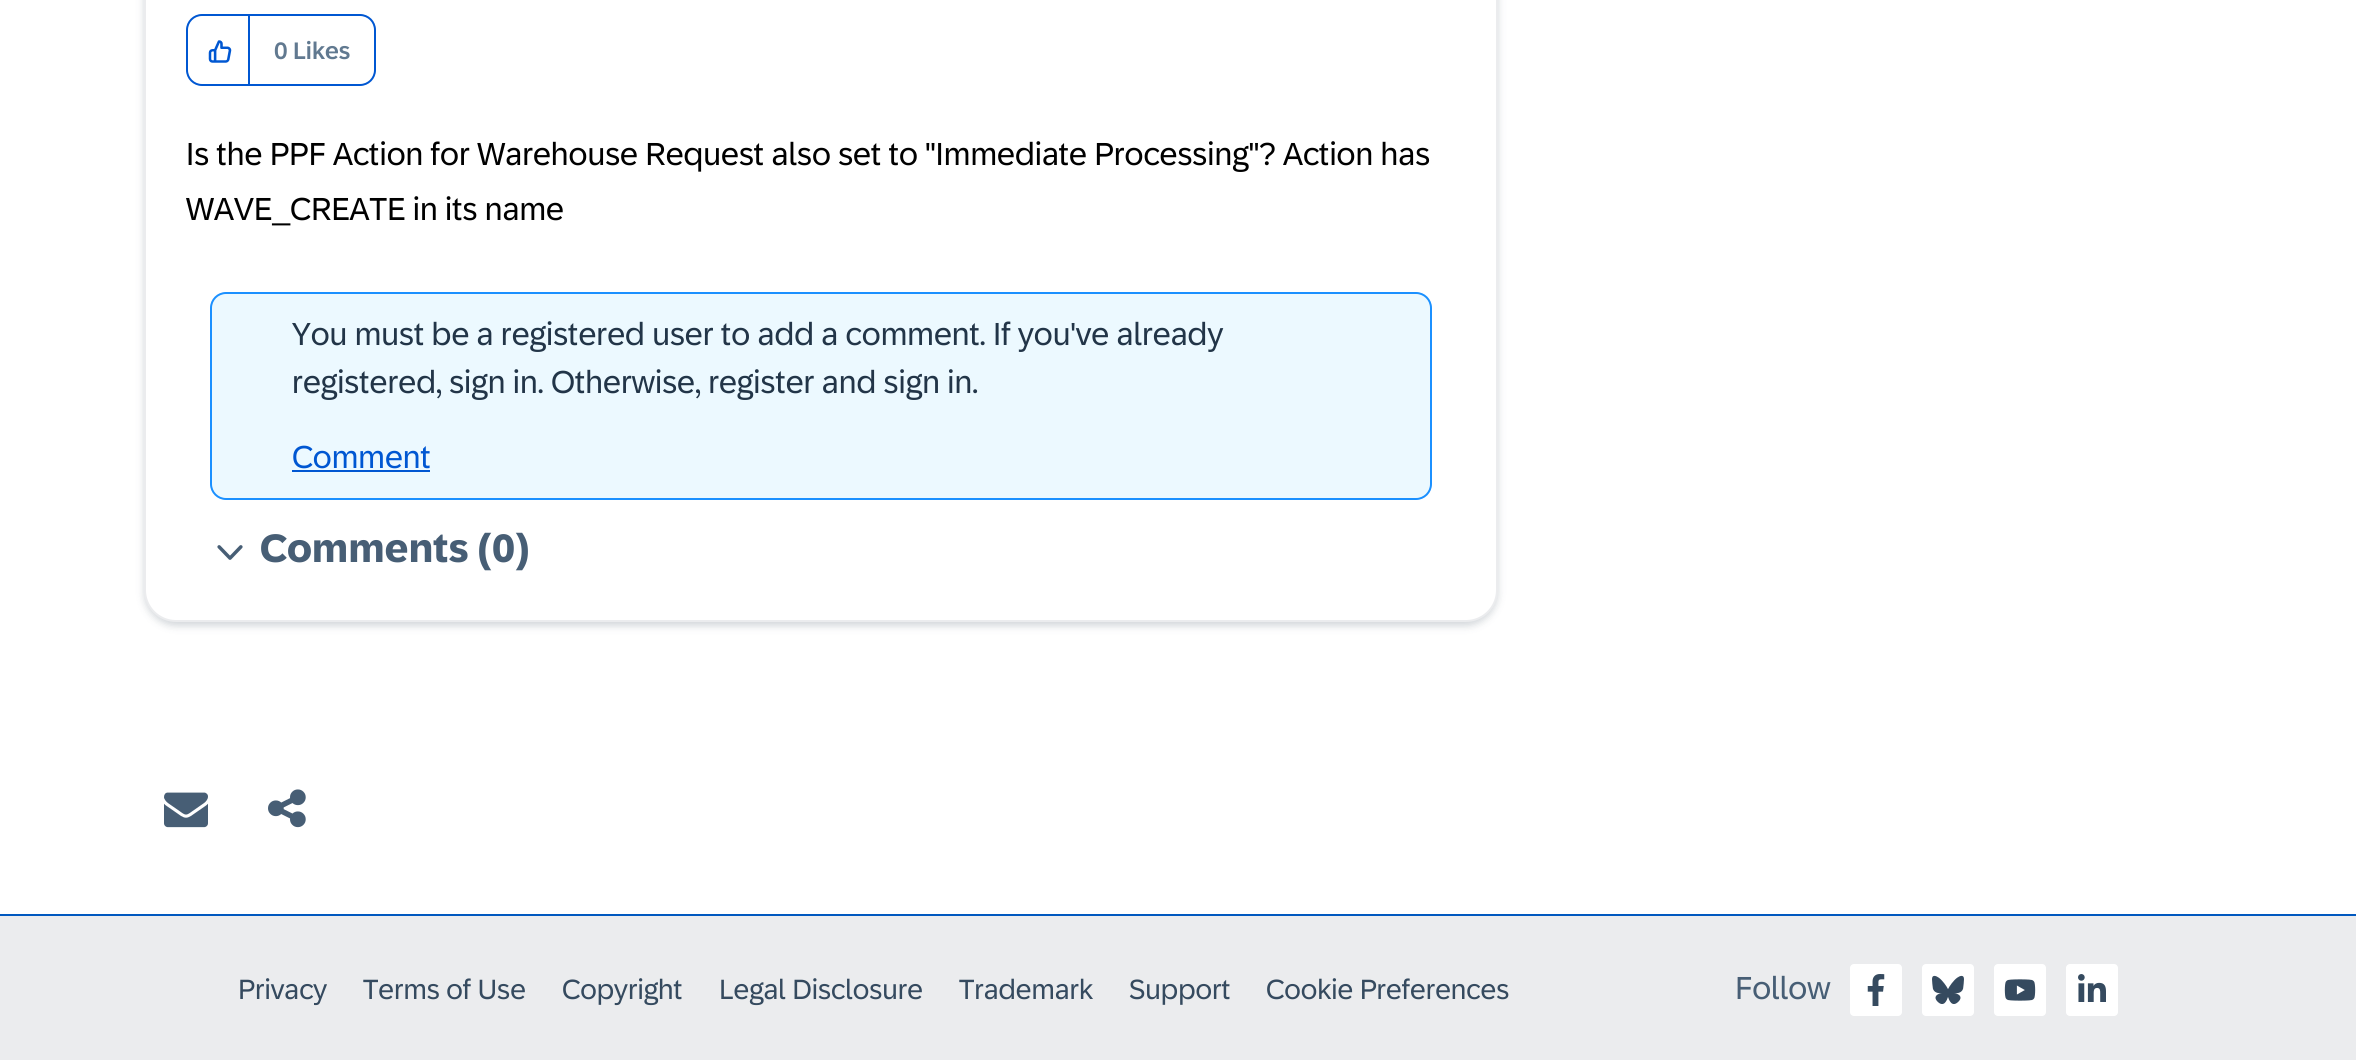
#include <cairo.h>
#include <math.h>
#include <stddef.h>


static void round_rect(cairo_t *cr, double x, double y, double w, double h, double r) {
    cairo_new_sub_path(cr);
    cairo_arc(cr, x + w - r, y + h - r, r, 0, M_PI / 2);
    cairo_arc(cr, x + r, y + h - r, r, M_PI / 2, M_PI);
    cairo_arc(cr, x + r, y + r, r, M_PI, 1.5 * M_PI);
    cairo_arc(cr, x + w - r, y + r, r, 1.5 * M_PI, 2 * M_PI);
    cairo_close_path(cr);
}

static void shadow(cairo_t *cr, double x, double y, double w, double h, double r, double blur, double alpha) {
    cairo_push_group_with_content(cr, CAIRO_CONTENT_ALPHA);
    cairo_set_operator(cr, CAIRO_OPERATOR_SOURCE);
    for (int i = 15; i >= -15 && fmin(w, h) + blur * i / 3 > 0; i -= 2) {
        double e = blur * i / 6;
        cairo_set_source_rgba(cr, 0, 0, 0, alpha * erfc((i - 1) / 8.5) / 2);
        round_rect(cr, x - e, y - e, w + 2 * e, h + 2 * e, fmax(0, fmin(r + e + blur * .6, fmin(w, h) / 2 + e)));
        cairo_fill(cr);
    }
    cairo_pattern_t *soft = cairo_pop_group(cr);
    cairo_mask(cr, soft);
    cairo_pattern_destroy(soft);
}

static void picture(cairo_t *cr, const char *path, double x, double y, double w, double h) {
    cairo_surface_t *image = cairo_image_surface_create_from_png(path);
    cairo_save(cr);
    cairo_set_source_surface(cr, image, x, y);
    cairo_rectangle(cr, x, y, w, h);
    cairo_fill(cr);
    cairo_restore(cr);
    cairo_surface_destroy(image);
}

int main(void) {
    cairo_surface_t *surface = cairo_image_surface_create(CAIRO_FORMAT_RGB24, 2356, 1060);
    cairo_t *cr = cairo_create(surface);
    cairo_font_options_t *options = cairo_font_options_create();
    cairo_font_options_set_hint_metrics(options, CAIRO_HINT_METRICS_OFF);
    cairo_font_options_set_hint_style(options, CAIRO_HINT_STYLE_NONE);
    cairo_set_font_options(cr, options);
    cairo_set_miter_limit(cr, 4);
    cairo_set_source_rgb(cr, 1, 1, 1);
    cairo_paint(cr);
    cairo_set_source_rgb(cr, 0.133, 0.212, 0.286);
    shadow(cr, 144, -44, 1354, 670, 32, 4, 0.2);
    cairo_set_source_rgb(cr, 1, 1, 1);
    round_rect(cr, 145, -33, 1352, 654, 31);
    cairo_fill_preserve(cr);
    cairo_set_source_rgb(cr, 0.918, 0.925, 0.933);
    cairo_stroke(cr);
    round_rect(cr, 187, 15, 188, 70, 15);
    cairo_set_source_rgb(cr, 0, 0.341, 0.824);
    cairo_stroke(cr);
    cairo_rectangle(cr, 248, 16, 2, 70);
    cairo_fill(cr);
    picture(cr, "img1.png", 208, 40, 24, 23);
    cairo_select_font_face(cr, "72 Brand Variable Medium", CAIRO_FONT_SLANT_NORMAL, CAIRO_FONT_WEIGHT_NORMAL);
    cairo_set_font_size(cr, 24);
    cairo_set_source_rgb(cr, 0.38, 0.475, 0.565);
    cairo_move_to(cr, 274, 59);
    cairo_show_text(cr, "0 Likes");
    cairo_select_font_face(cr, "72 Brand Variable", CAIRO_FONT_SLANT_NORMAL, CAIRO_FONT_WEIGHT_NORMAL);
    cairo_set_font_size(cr, 32);
    cairo_set_source_rgb(cr, 0, 0, 0);
    cairo_move_to(cr, 186, 165);
    cairo_show_text(cr, "Is the PPF Action for Warehouse Request also set to \"Immediate Processing\"? Action has");
    cairo_move_to(cr, 186, 220);
    cairo_show_text(cr, "WAVE_CREATE in its name");
    cairo_set_source_rgb(cr, 0.922, 0.973, 1);
    round_rect(cr, 211, 293, 1220, 206, 15);
    cairo_fill_preserve(cr);
    cairo_set_source_rgb(cr, 0.106, 0.565, 1);
    cairo_stroke(cr);
    cairo_set_source_rgb(cr, 0.133, 0.208, 0.282);
    cairo_move_to(cr, 292, 345);
    cairo_show_text(cr, "You must be a registered user to add a comment. If you've already");
    cairo_move_to(cr, 292, 393);
    cairo_show_text(cr, "registered, sign in. Otherwise, register and sign in.");
    cairo_set_source_rgb(cr, 0, 0.341, 0.824);
    cairo_move_to(cr, 292, 468);
    cairo_show_text(cr, "Comment");
    cairo_rectangle(cr, 292, 470, 138, 2);
    cairo_fill(cr);
    picture(cr, "img2.png", 217, 545, 26, 15);
    cairo_select_font_face(cr, "72 Brand Variable", CAIRO_FONT_SLANT_NORMAL, CAIRO_FONT_WEIGHT_BOLD);
    cairo_set_font_size(cr, 40);
    cairo_set_source_rgb(cr, 0.278, 0.369, 0.459);
    cairo_move_to(cr, 260, 562);
    cairo_show_text(cr, "Comments (0)");
    picture(cr, "img3.png", 164, 792, 44, 36);
    picture(cr, "img4.png", 268, 789, 38, 39);
    cairo_set_source_rgb(cr, 0, 0.345, 0.749);
    cairo_rectangle(cr, 0, 914, 2356, 2);
    cairo_fill(cr);
    cairo_set_source_rgb(cr, 0.918, 0.925, 0.933);
    cairo_rectangle(cr, 0, 916, 2356, 144);
    cairo_fill(cr);
    cairo_select_font_face(cr, "72 Brand Variable", CAIRO_FONT_SLANT_NORMAL, CAIRO_FONT_WEIGHT_NORMAL);
    cairo_set_font_size(cr, 28);
    cairo_set_source_rgb(cr, 0.208, 0.29, 0.373);
    cairo_move_to(cr, 238, 999);
    cairo_show_text(cr, "Privacy");
    cairo_move_to(cr, 363, 999);
    cairo_show_text(cr, "Terms of Use");
    cairo_move_to(cr, 562, 999);
    cairo_show_text(cr, "Copyright");
    cairo_move_to(cr, 719, 999);
    cairo_show_text(cr, "Legal Disclosure");
    cairo_move_to(cr, 959, 999);
    cairo_show_text(cr, "Trademark");
    cairo_move_to(cr, 1129, 999);
    cairo_show_text(cr, "Support");
    cairo_move_to(cr, 1266, 999);
    cairo_show_text(cr, "Cookie Preferences");
    cairo_set_font_size(cr, 32);
    cairo_set_source_rgb(cr, 0.278, 0.369, 0.459);
    cairo_move_to(cr, 1735, 999);
    cairo_show_text(cr, "Follow");
    cairo_set_source_rgb(cr, 1, 1, 1);
    round_rect(cr, 1850, 964, 52, 52, 4);
    cairo_fill(cr);
    picture(cr, "img5.png", 1867, 974, 18, 32);
    round_rect(cr, 1922, 964, 52, 52, 4);
    cairo_fill(cr);
    picture(cr, "img6.png", 1932, 975, 32, 29);
    round_rect(cr, 1994, 964, 52, 52, 4);
    cairo_fill(cr);
    picture(cr, "img7.png", 2004, 979, 32, 22);
    round_rect(cr, 2066, 964, 52, 52, 4);
    cairo_fill(cr);
    picture(cr, "img8.png", 2078, 974, 28, 28);
    cairo_surface_write_to_png(surface, "page.png");
    cairo_font_options_destroy(options);
    cairo_destroy(cr);
    cairo_surface_destroy(surface);
    return 0;
}
